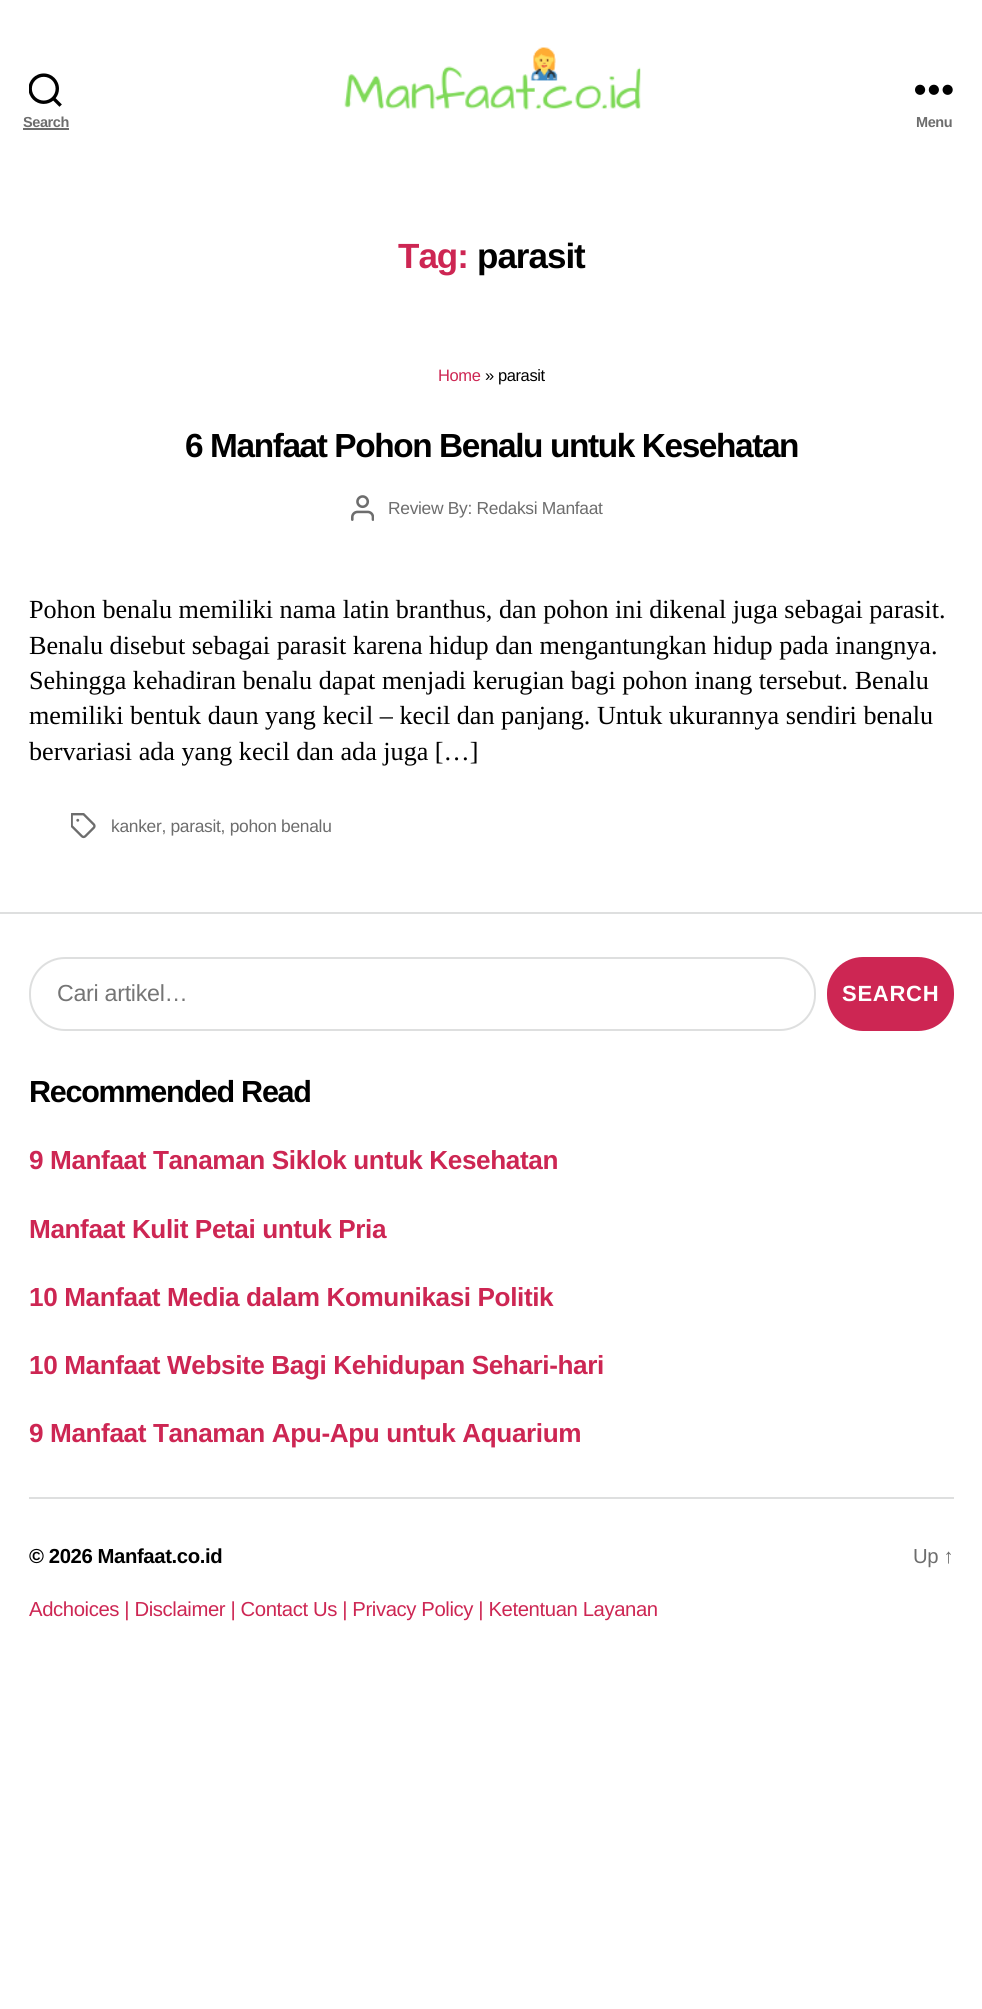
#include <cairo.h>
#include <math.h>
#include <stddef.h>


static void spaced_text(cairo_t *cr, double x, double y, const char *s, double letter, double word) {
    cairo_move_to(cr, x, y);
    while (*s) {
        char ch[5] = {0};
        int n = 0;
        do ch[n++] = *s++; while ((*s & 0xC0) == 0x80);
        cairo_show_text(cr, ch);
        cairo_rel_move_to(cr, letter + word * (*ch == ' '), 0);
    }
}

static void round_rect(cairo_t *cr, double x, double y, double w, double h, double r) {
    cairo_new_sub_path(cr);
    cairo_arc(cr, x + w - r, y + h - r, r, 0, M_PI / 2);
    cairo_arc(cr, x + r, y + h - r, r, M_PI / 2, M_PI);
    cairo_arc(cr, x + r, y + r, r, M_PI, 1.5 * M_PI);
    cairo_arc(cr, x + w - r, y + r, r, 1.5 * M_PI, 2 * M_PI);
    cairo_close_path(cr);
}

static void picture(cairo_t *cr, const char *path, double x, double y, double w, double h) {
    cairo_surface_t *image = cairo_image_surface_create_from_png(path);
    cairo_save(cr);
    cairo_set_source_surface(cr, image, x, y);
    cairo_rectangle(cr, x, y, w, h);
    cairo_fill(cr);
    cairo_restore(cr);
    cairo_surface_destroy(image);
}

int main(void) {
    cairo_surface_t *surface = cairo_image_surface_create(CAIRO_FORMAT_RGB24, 982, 2009);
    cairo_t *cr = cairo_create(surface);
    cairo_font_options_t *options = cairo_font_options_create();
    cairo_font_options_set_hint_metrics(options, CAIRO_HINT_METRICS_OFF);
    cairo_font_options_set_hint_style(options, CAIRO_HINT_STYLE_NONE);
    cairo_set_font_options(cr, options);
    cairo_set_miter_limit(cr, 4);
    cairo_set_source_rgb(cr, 1, 1, 1);
    cairo_paint(cr);
    picture(cr, "img1.png", 344, 47, 297, 63);
    picture(cr, "img2.png", 29, 73, 33, 34);
    cairo_select_font_face(cr, "Liberation Sans", CAIRO_FONT_SLANT_NORMAL, CAIRO_FONT_WEIGHT_BOLD);
    cairo_set_font_size(cr, 14.5);
    cairo_set_source_rgb(cr, 0.427, 0.427, 0.427);
    spaced_text(cr, 23, 127, "Search", -0.4, 0);
    cairo_rectangle(cr, 23, 128, 46, 2);
    cairo_fill(cr);
    picture(cr, "img3.png", 915, 84, 38, 11);
    spaced_text(cr, 916, 127, "Menu", -0.4, 0);
    cairo_set_font_size(cr, 35);
    cairo_set_source_rgb(cr, 0.804, 0.149, 0.325);
    spaced_text(cr, 398, 268, "Tag:", -1, 0);
    cairo_set_source_rgb(cr, 0, 0, 0);
    spaced_text(cr, 477, 268, "parasit", -1, 0);
    cairo_select_font_face(cr, "Liberation Sans", CAIRO_FONT_SLANT_NORMAL, CAIRO_FONT_WEIGHT_NORMAL);
    cairo_set_font_size(cr, 16.5);
    cairo_set_source_rgb(cr, 0.804, 0.149, 0.325);
    spaced_text(cr, 438, 381, "Home", -0.4, 0);
    cairo_set_source_rgb(cr, 0, 0, 0);
    spaced_text(cr, 485, 381, "» parasit", -0.4, 0);
    cairo_select_font_face(cr, "Liberation Sans", CAIRO_FONT_SLANT_NORMAL, CAIRO_FONT_WEIGHT_BOLD);
    cairo_set_font_size(cr, 33.4);
    spaced_text(cr, 185, 457, "6 Manfaat Pohon Benalu untuk Kesehatan", -1.4, 0);
    picture(cr, "img4.png", 351, 495, 23, 26);
    cairo_select_font_face(cr, "Liberation Sans", CAIRO_FONT_SLANT_NORMAL, CAIRO_FONT_WEIGHT_NORMAL);
    cairo_set_font_size(cr, 17.4);
    cairo_set_source_rgb(cr, 0.427, 0.427, 0.427);
    spaced_text(cr, 388, 514, "Review By: Redaksi Manfaat", -0.3, 0);
    cairo_select_font_face(cr, "Liberation Serif", CAIRO_FONT_SLANT_NORMAL, CAIRO_FONT_WEIGHT_NORMAL);
    cairo_set_font_size(cr, 26.15);
    cairo_set_source_rgb(cr, 0, 0, 0);
    cairo_move_to(cr, 29, 618);
    cairo_show_text(cr, "Pohon benalu memiliki nama latin branthus, dan pohon ini dikenal juga sebagai parasit.");
    cairo_move_to(cr, 29, 654);
    cairo_show_text(cr, "Benalu disebut sebagai parasit karena hidup dan mengantungkan hidup pada inangnya.");
    cairo_move_to(cr, 29, 689);
    cairo_show_text(cr, "Sehingga kehadiran benalu dapat menjadi kerugian bagi pohon inang tersebut. Benalu");
    cairo_move_to(cr, 29, 724);
    cairo_show_text(cr, "memiliki bentuk daun yang kecil – kecil dan panjang. Untuk ukurannya sendiri benalu");
    cairo_move_to(cr, 29, 760);
    cairo_show_text(cr, "bervariasi ada yang kecil dan ada juga […]");
    picture(cr, "img5.png", 71, 813, 25, 26);
    cairo_select_font_face(cr, "Liberation Sans", CAIRO_FONT_SLANT_NORMAL, CAIRO_FONT_WEIGHT_NORMAL);
    cairo_set_font_size(cr, 17.4);
    cairo_set_source_rgb(cr, 0.427, 0.427, 0.427);
    spaced_text(cr, 111, 832, "kanker, parasit, pohon benalu", -0.3, 0);
    cairo_set_source_rgb(cr, 0.871, 0.875, 0.875);
    cairo_rectangle(cr, 0, 912, 982, 2);
    cairo_fill(cr);
    cairo_rectangle(cr, 29, 1497, 925, 2);
    cairo_fill(cr);
    round_rect(cr, 30, 958, 785, 72, 35);
    cairo_stroke(cr);
    cairo_set_font_size(cr, 23.25);
    cairo_set_source_rgb(cr, 0.459, 0.459, 0.459);
    spaced_text(cr, 57, 1001, "Cari artikel…", -0.3, 0);
    cairo_set_source_rgb(cr, 0.804, 0.149, 0.325);
    round_rect(cr, 827, 957, 127, 74, 36);
    cairo_fill(cr);
    cairo_select_font_face(cr, "Liberation Sans", CAIRO_FONT_SLANT_NORMAL, CAIRO_FONT_WEIGHT_BOLD);
    cairo_set_font_size(cr, 22);
    cairo_set_source_rgb(cr, 1, 1, 1);
    spaced_text(cr, 842, 1001, "SEARCH", 0.75, 0);
    cairo_set_font_size(cr, 30.5);
    cairo_set_source_rgb(cr, 0, 0, 0);
    spaced_text(cr, 29, 1102, "Recommended Read", -1.25, 0);
    cairo_set_font_size(cr, 26.15);
    cairo_set_source_rgb(cr, 0.804, 0.149, 0.325);
    spaced_text(cr, 29, 1169, "9 Manfaat Tanaman Siklok untuk Kesehatan", -0.4, 0);
    spaced_text(cr, 29, 1238, "Manfaat Kulit Petai untuk Pria", -0.4, 0);
    spaced_text(cr, 29, 1306, "10 Manfaat Media dalam Komunikasi Politik", -0.4, 0);
    spaced_text(cr, 29, 1374, "10 Manfaat Website Bagi Kehidupan Sehari-hari", -0.4, 0);
    spaced_text(cr, 29, 1442, "9 Manfaat Tanaman Apu-Apu untuk Aquarium", -0.4, 0);
    cairo_set_font_size(cr, 20.3);
    cairo_set_source_rgb(cr, 0, 0, 0);
    spaced_text(cr, 29, 1563, "© 2026 Manfaat.co.id", -0.4, 0);
    cairo_select_font_face(cr, "Liberation Sans", CAIRO_FONT_SLANT_NORMAL, CAIRO_FONT_WEIGHT_NORMAL);
    cairo_set_source_rgb(cr, 0.804, 0.149, 0.325);
    spaced_text(cr, 29, 1616, "Adchoices | Disclaimer | Contact Us | Privacy Policy | Ketentuan Layanan", -0.4, 0);
    cairo_set_source_rgb(cr, 0.427, 0.427, 0.427);
    spaced_text(cr, 913, 1563, "Up ↑", -0.4, 0);
    cairo_surface_write_to_png(surface, "page.png");
    cairo_font_options_destroy(options);
    cairo_destroy(cr);
    cairo_surface_destroy(surface);
    return 0;
}
